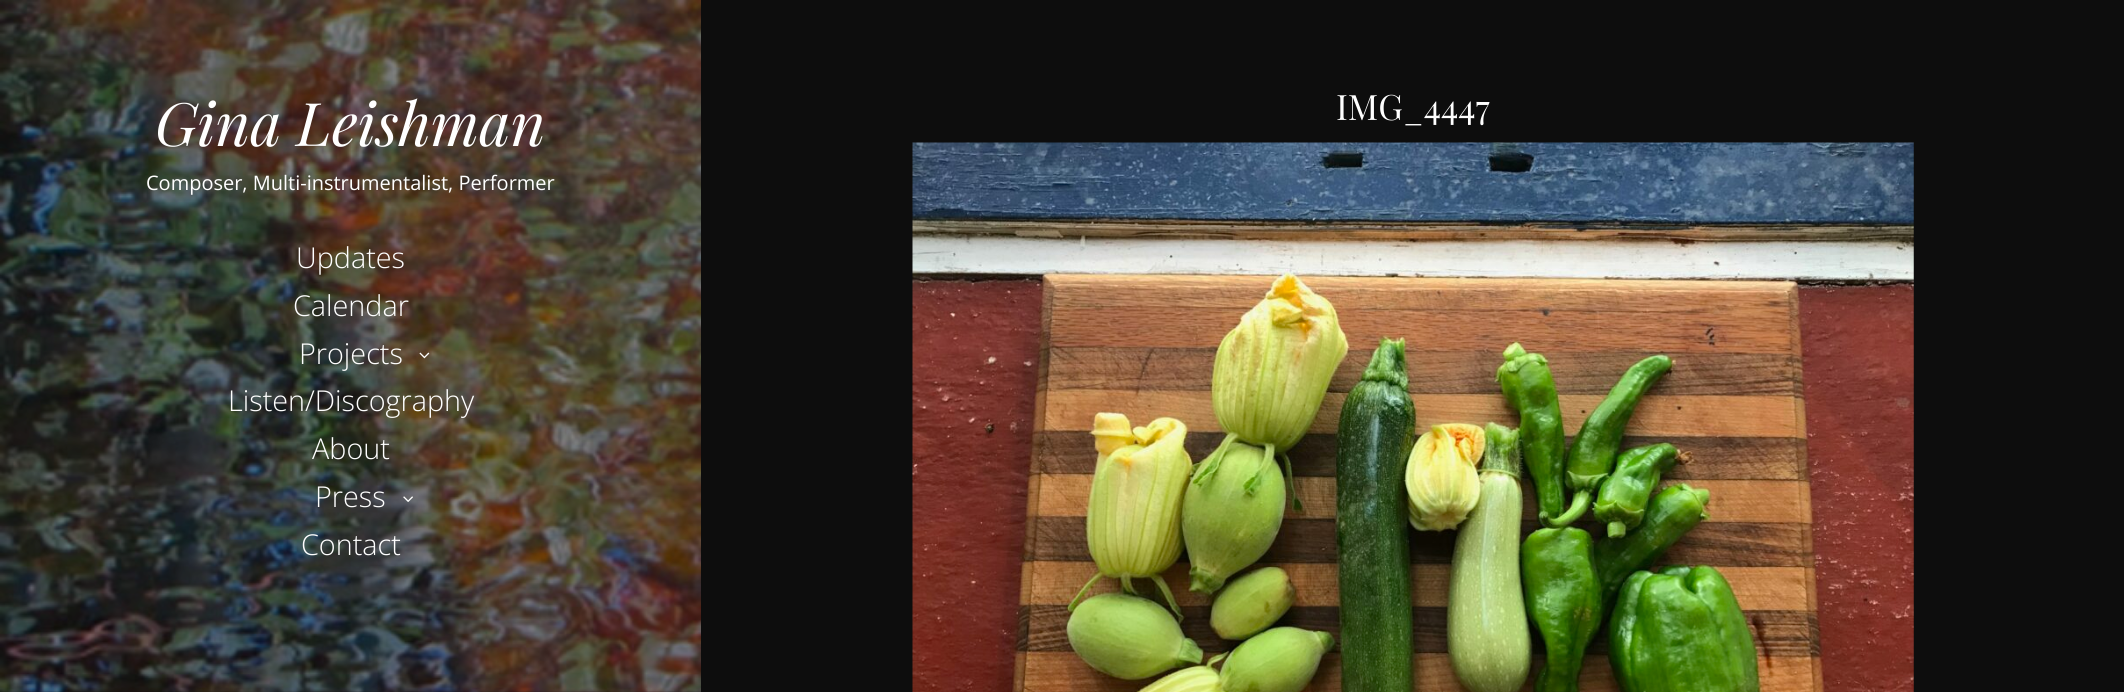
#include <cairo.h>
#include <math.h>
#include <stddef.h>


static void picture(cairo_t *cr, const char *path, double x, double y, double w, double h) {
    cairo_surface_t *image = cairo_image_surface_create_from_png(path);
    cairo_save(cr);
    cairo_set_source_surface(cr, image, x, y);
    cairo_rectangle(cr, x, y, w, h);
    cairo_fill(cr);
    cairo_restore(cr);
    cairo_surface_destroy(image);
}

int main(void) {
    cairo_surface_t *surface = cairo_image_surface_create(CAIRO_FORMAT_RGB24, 2124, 692);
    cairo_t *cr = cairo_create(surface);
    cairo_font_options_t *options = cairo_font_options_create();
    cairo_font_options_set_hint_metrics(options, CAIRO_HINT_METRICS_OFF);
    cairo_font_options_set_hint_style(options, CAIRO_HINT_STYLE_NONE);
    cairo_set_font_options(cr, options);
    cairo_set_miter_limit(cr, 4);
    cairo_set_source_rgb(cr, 0.051, 0.051, 0.051);
    cairo_paint(cr);
    picture(cr, "img1.png", 0, 0, 701, 692);
    cairo_select_font_face(cr, "Playfair Display", CAIRO_FONT_SLANT_ITALIC, CAIRO_FONT_WEIGHT_NORMAL);
    cairo_set_font_size(cr, 60);
    cairo_set_source_rgb(cr, 1, 1, 1);
    cairo_move_to(cr, 155, 146);
    cairo_show_text(cr, "Gina Leishman");
    cairo_select_font_face(cr, "Open Sans", CAIRO_FONT_SLANT_NORMAL, CAIRO_FONT_WEIGHT_NORMAL);
    cairo_set_font_size(cr, 20);
    cairo_move_to(cr, 146, 190);
    cairo_show_text(cr, "Composer, Multi-instrumentalist, Performer");
    cairo_select_font_face(cr, "Open Sans Light", CAIRO_FONT_SLANT_NORMAL, CAIRO_FONT_WEIGHT_NORMAL);
    cairo_set_font_size(cr, 28.75);
    cairo_move_to(cr, 296, 268);
    cairo_show_text(cr, "Updates");
    cairo_move_to(cr, 293, 316);
    cairo_show_text(cr, "Calendar");
    cairo_move_to(cr, 299, 364);
    cairo_show_text(cr, "Projects");
    picture(cr, "img2.png", 419, 352, 11, 7);
    cairo_move_to(cr, 228, 411);
    cairo_show_text(cr, "Listen/Discography");
    cairo_move_to(cr, 312, 459);
    cairo_show_text(cr, "About");
    cairo_move_to(cr, 315, 507);
    cairo_show_text(cr, "Press");
    picture(cr, "img3.png", 403, 496, 10, 6);
    cairo_move_to(cr, 301, 555);
    cairo_show_text(cr, "Contact");
    cairo_select_font_face(cr, "Playfair Display", CAIRO_FONT_SLANT_NORMAL, CAIRO_FONT_WEIGHT_NORMAL);
    cairo_set_font_size(cr, 35);
    cairo_move_to(cr, 1336, 120);
    cairo_show_text(cr, "IMG_4447");
    picture(cr, "img4.png", 912, 142, 1002, 550);
    cairo_surface_write_to_png(surface, "page.png");
    cairo_font_options_destroy(options);
    cairo_destroy(cr);
    cairo_surface_destroy(surface);
    return 0;
}
